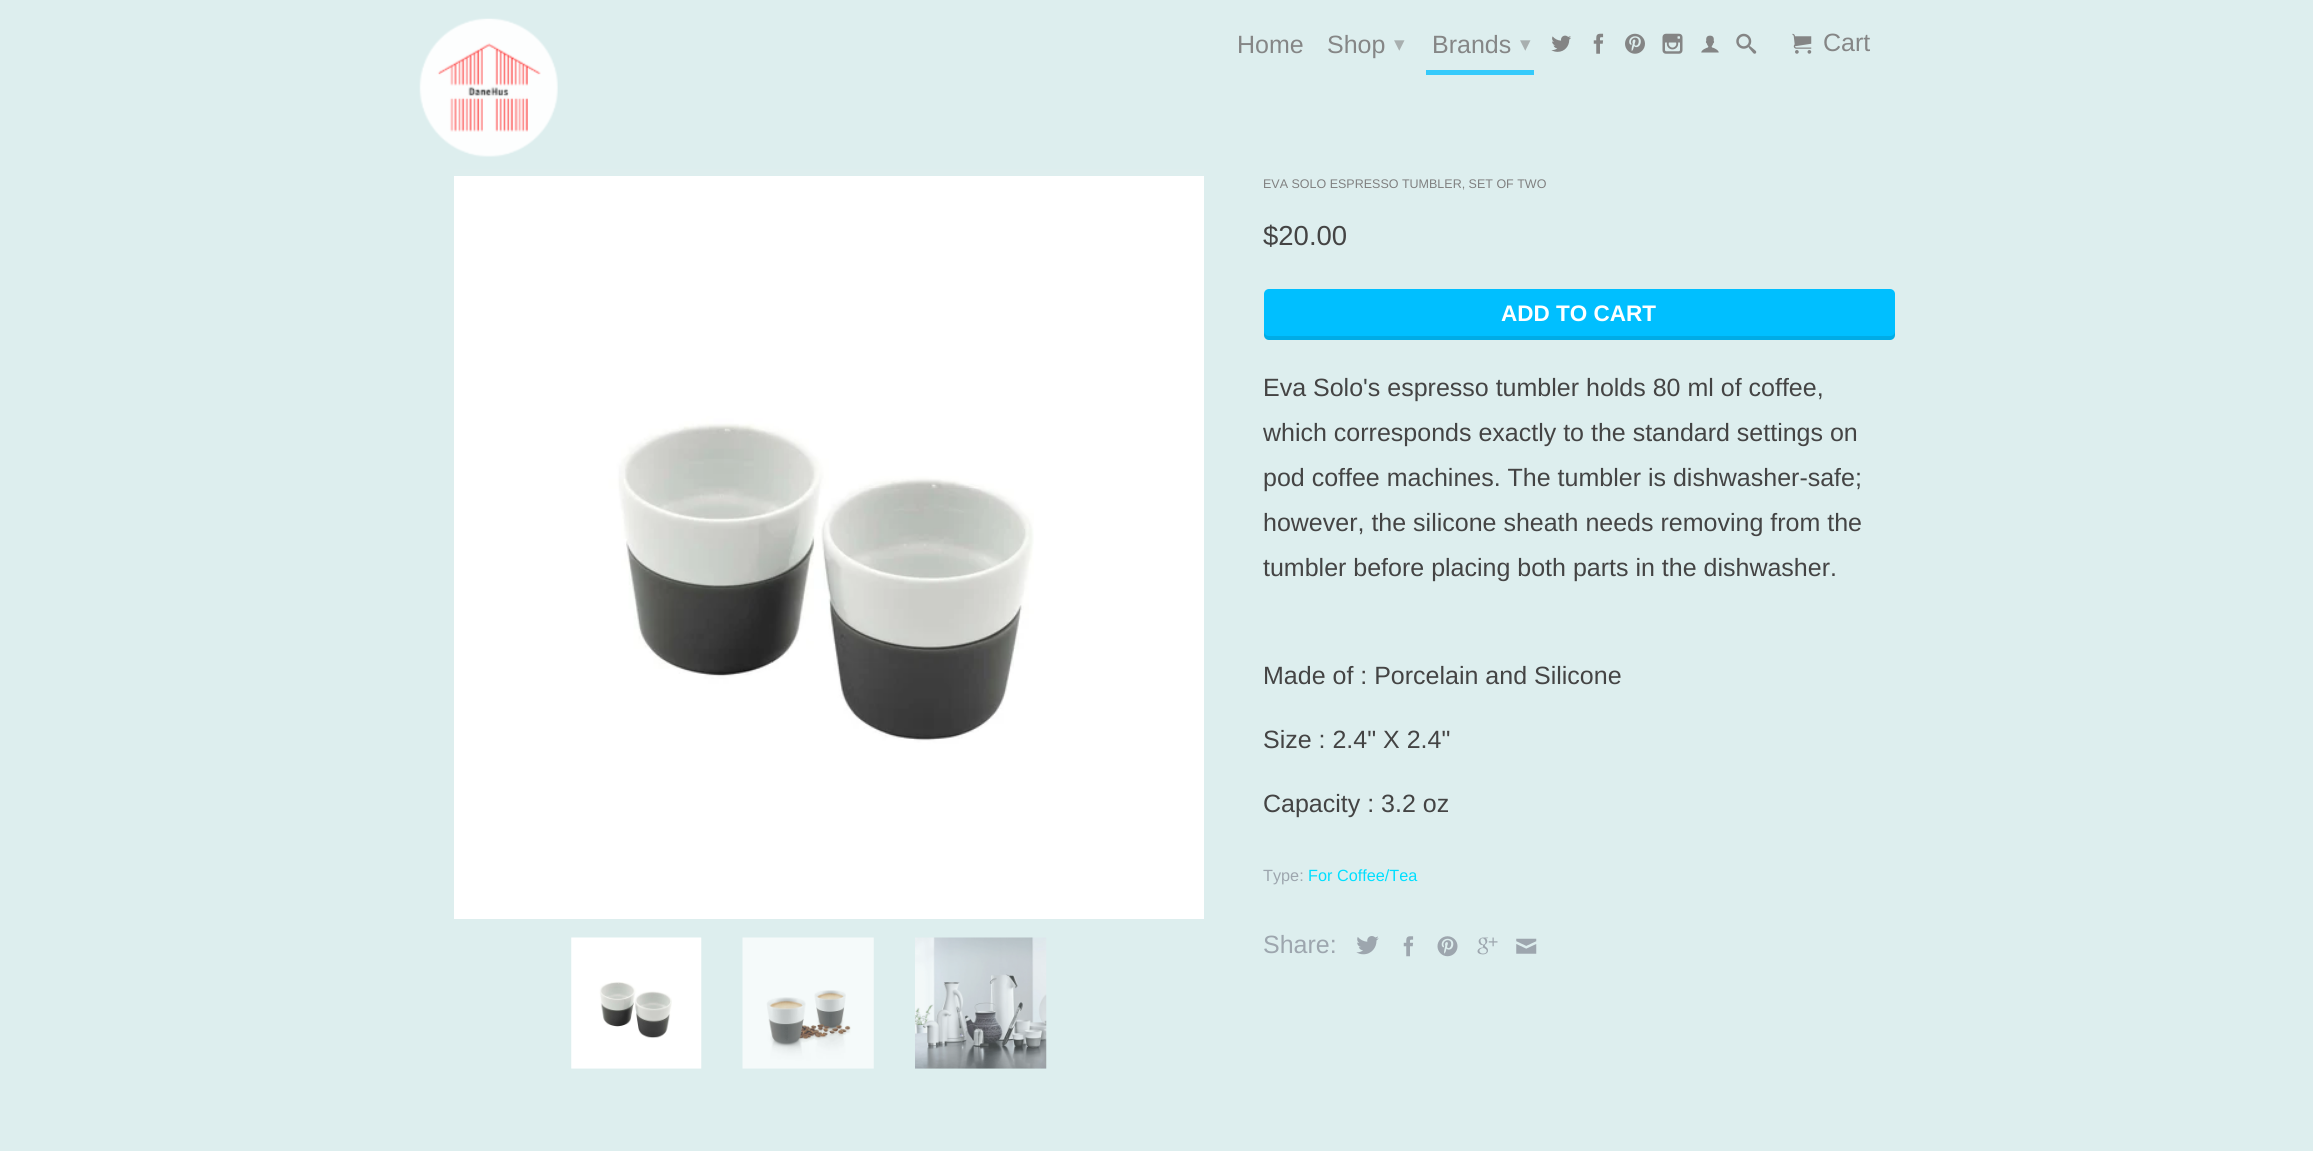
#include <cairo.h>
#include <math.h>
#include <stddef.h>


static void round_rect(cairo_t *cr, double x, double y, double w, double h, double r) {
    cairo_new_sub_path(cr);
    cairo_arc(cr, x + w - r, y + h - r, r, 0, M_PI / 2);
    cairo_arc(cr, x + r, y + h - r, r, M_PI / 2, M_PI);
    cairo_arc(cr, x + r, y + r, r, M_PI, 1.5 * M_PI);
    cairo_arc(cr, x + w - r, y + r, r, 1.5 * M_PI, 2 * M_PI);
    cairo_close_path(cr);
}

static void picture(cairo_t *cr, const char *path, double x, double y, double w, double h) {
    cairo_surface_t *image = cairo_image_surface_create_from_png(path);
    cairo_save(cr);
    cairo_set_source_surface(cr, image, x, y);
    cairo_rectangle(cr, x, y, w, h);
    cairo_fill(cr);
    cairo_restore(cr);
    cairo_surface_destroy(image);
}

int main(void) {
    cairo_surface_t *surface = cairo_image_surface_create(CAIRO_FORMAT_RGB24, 2313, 1151);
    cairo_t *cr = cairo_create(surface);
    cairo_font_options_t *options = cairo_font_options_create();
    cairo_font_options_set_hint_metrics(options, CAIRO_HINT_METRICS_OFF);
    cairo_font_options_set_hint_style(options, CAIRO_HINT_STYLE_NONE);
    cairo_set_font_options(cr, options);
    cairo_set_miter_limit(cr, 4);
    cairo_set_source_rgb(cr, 0.867, 0.933, 0.933);
    cairo_paint(cr);
    picture(cr, "img9.png", 454, 169, 750, 750);
    cairo_set_source_rgba(cr, 0.867, 0.933, 0.933, 0.95);
    cairo_rectangle(cr, 454, 169, 750, 6);
    cairo_fill(cr);
    cairo_set_source_rgb(cr, 0.867, 0.933, 0.933);
    cairo_rectangle(cr, 454, 175, 750, 1);
    cairo_fill(cr);
    picture(cr, "img1.png", 419, 18, 139, 139);
    cairo_select_font_face(cr, "Liberation Sans", CAIRO_FONT_SLANT_NORMAL, CAIRO_FONT_WEIGHT_NORMAL);
    cairo_set_font_size(cr, 25);
    cairo_set_source_rgb(cr, 0.522, 0.525, 0.525);
    cairo_move_to(cr, 1237, 53);
    cairo_show_text(cr, "Home");
    cairo_move_to(cr, 1327, 53);
    cairo_show_text(cr, "Shop");
    cairo_select_font_face(cr, "DejaVu Sans", CAIRO_FONT_SLANT_NORMAL, CAIRO_FONT_WEIGHT_NORMAL);
    cairo_set_font_size(cr, 21);
    cairo_set_source_rgb(cr, 0.659, 0.686, 0.686);
    cairo_move_to(cr, 1394, 51);
    cairo_show_text(cr, "▾");
    cairo_select_font_face(cr, "Liberation Sans", CAIRO_FONT_SLANT_NORMAL, CAIRO_FONT_WEIGHT_NORMAL);
    cairo_set_font_size(cr, 25);
    cairo_set_source_rgb(cr, 0.522, 0.525, 0.525);
    cairo_move_to(cr, 1432, 53);
    cairo_show_text(cr, "Brands");
    cairo_select_font_face(cr, "DejaVu Sans", CAIRO_FONT_SLANT_NORMAL, CAIRO_FONT_WEIGHT_NORMAL);
    cairo_set_font_size(cr, 21);
    cairo_set_source_rgb(cr, 0.659, 0.686, 0.686);
    cairo_move_to(cr, 1520, 51);
    cairo_show_text(cr, "▾");
    cairo_set_source_rgb(cr, 0.208, 0.792, 0.984);
    cairo_rectangle(cr, 1426, 70, 108, 5);
    cairo_fill(cr);
    picture(cr, "img2.png", 1551, 35, 20, 17);
    picture(cr, "img3.png", 1593, 33, 11, 21);
    picture(cr, "img4.png", 1625, 33, 20, 21);
    picture(cr, "img5.png", 1662, 33, 21, 21);
    picture(cr, "img6.png", 1701, 35, 18, 18);
    picture(cr, "img7.png", 1736, 33, 21, 21);
    picture(cr, "img8.png", 1792, 33, 20, 21);
    cairo_select_font_face(cr, "Liberation Sans", CAIRO_FONT_SLANT_NORMAL, CAIRO_FONT_WEIGHT_NORMAL);
    cairo_set_font_size(cr, 25);
    cairo_set_source_rgb(cr, 0.522, 0.525, 0.525);
    cairo_move_to(cr, 1823, 51);
    cairo_show_text(cr, "Cart");
    picture(cr, "img10.png", 571, 937, 131, 132);
    picture(cr, "img11.png", 742, 937, 132, 132);
    picture(cr, "img12.png", 915, 937, 132, 132);
    cairo_set_font_size(cr, 12.5);
    cairo_set_source_rgb(cr, 0.502, 0.502, 0.502);
    cairo_move_to(cr, 1263, 188);
    cairo_show_text(cr, "EVA SOLO ESPRESSO TUMBLER, SET OF TWO");
    cairo_set_font_size(cr, 27.5);
    cairo_set_source_rgb(cr, 0.267, 0.267, 0.267);
    cairo_move_to(cr, 1263, 245);
    cairo_show_text(cr, "$20.00");
    cairo_set_source_rgb(cr, 0, 0.749, 1);
    round_rect(cr, 1264, 289, 631, 51, 5);
    cairo_fill(cr);
    cairo_set_source_rgba(cr, 0, 0, 0, 0.1);
    cairo_new_path(cr);
    cairo_move_to(cr, 1264, 331);
    cairo_line_to(cr, 1264, 335);
    cairo_curve_to(cr, 1264, 338, 1266, 340, 1269, 340);
    cairo_line_to(cr, 1890, 340);
    cairo_curve_to(cr, 1893, 340, 1895, 338, 1895, 335);
    cairo_line_to(cr, 1895, 331);
    cairo_curve_to(cr, 1895, 334, 1893, 336, 1890, 336);
    cairo_line_to(cr, 1269, 336);
    cairo_curve_to(cr, 1266, 336, 1264, 334, 1264, 331);
    cairo_close_path(cr);
    cairo_fill(cr);
    cairo_select_font_face(cr, "Liberation Sans", CAIRO_FONT_SLANT_NORMAL, CAIRO_FONT_WEIGHT_BOLD);
    cairo_set_font_size(cr, 22.5);
    cairo_set_source_rgb(cr, 1, 1, 1);
    cairo_move_to(cr, 1501, 321);
    cairo_show_text(cr, "ADD TO CART");
    cairo_select_font_face(cr, "Liberation Sans", CAIRO_FONT_SLANT_NORMAL, CAIRO_FONT_WEIGHT_NORMAL);
    cairo_set_font_size(cr, 25);
    cairo_set_source_rgb(cr, 0.267, 0.267, 0.267);
    cairo_move_to(cr, 1263, 396);
    cairo_show_text(cr, "Eva Solo's espresso tumbler holds 80 ml of coffee,");
    cairo_move_to(cr, 1263, 441);
    cairo_show_text(cr, "which corresponds exactly to the standard settings on");
    cairo_move_to(cr, 1263, 486);
    cairo_show_text(cr, "pod coffee machines. The tumbler is dishwasher-safe;");
    cairo_move_to(cr, 1263, 531);
    cairo_show_text(cr, "however, the silicone sheath needs removing from the");
    cairo_move_to(cr, 1263, 576);
    cairo_show_text(cr, "tumbler before placing both parts in the dishwasher.");
    cairo_move_to(cr, 1263, 684);
    cairo_show_text(cr, "Made of : Porcelain and Silicone");
    cairo_move_to(cr, 1263, 748);
    cairo_show_text(cr, "Size : 2.4\" X 2.4\"");
    cairo_move_to(cr, 1263, 812);
    cairo_show_text(cr, "Capacity : 3.2 oz");
    cairo_set_font_size(cr, 16.25);
    cairo_set_source_rgb(cr, 0.616, 0.651, 0.682);
    cairo_move_to(cr, 1263, 881);
    cairo_show_text(cr, "Type:");
    cairo_set_source_rgb(cr, 0, 0.875, 1);
    cairo_move_to(cr, 1308, 881);
    cairo_show_text(cr, "For Coffee/Tea");
    cairo_set_font_size(cr, 25);
    cairo_set_source_rgb(cr, 0.616, 0.651, 0.682);
    cairo_move_to(cr, 1263, 953);
    cairo_show_text(cr, "Share:");
    picture(cr, "img13.png", 1356, 936, 23, 19);
    picture(cr, "img14.png", 1403, 936, 11, 21);
    picture(cr, "img15.png", 1437, 936, 21, 21);
    picture(cr, "img16.png", 1477, 937, 21, 18);
    picture(cr, "img17.png", 1516, 938, 21, 16);
    cairo_surface_write_to_png(surface, "page.png");
    cairo_font_options_destroy(options);
    cairo_destroy(cr);
    cairo_surface_destroy(surface);
    return 0;
}
